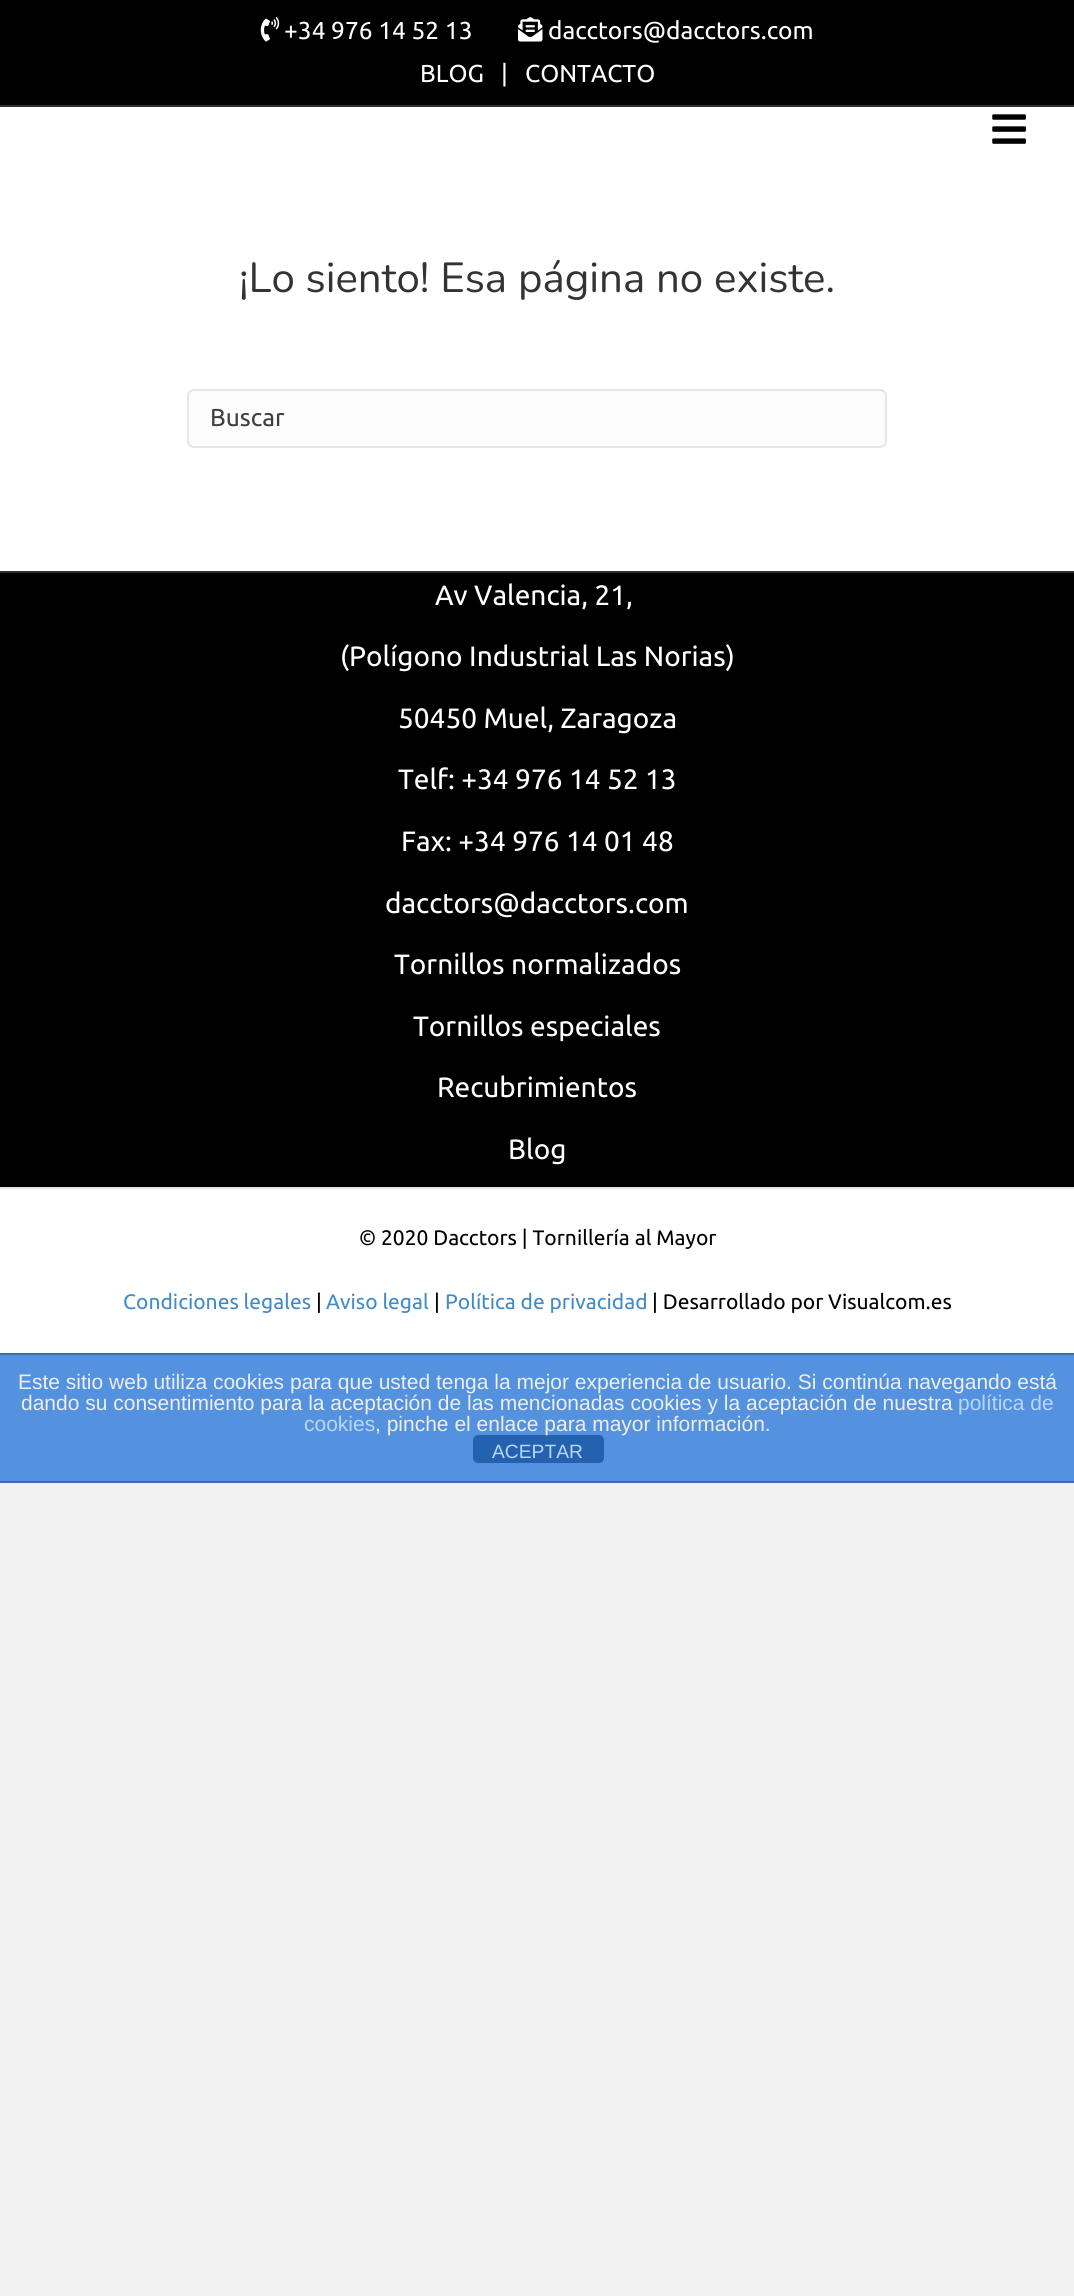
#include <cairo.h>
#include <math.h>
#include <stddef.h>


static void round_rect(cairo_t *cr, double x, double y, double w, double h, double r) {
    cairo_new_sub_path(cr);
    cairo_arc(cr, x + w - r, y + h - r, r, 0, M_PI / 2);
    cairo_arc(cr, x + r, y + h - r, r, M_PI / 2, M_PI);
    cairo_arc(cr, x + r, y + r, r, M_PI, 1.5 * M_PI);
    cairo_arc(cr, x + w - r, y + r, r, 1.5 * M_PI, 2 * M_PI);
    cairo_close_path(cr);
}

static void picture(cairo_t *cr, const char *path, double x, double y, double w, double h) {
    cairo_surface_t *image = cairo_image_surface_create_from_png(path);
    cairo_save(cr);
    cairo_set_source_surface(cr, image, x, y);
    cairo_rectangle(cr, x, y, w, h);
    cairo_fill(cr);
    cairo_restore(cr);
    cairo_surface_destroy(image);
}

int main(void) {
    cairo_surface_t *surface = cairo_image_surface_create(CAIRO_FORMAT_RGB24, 1074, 2296);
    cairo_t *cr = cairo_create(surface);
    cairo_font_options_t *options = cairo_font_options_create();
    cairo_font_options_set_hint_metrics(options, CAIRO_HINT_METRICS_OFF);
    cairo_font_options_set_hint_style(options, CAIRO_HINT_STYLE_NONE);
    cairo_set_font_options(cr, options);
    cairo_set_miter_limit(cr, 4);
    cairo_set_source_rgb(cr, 0.949, 0.949, 0.949);
    cairo_paint(cr);
    cairo_set_source_rgb(cr, 0, 0, 0);
    cairo_rectangle(cr, 0, 0, 1074, 105);
    cairo_fill(cr);
    cairo_set_source_rgb(cr, 0.188, 0.188, 0.188);
    cairo_rectangle(cr, 0, 105, 1074, 2);
    cairo_fill(cr);
    picture(cr, "img1.png", 260, 17, 20, 25);
    cairo_select_font_face(cr, "Ubuntu", CAIRO_FONT_SLANT_NORMAL, CAIRO_FONT_WEIGHT_NORMAL);
    cairo_set_font_size(cr, 24.5);
    cairo_set_source_rgb(cr, 1, 1, 1);
    cairo_move_to(cr, 284, 39);
    cairo_show_text(cr, "+34 976 14 52 13");
    picture(cr, "img2.png", 518, 17, 25, 25);
    cairo_move_to(cr, 548, 39);
    cairo_show_text(cr, "dacctors@dacctors.com");
    cairo_move_to(cr, 420, 82);
    cairo_show_text(cr, "BLOG");
    cairo_move_to(cr, 501, 82);
    cairo_show_text(cr, "|");
    cairo_move_to(cr, 525, 82);
    cairo_show_text(cr, "CONTACTO");
    cairo_rectangle(cr, 0, 107, 1074, 464);
    cairo_fill(cr);
    picture(cr, "img3.png", 992, 114, 34, 30);
    cairo_select_font_face(cr, "Nunito", CAIRO_FONT_SLANT_NORMAL, CAIRO_FONT_WEIGHT_NORMAL);
    cairo_set_font_size(cr, 42);
    cairo_set_source_rgb(cr, 0.2, 0.2, 0.2);
    cairo_move_to(cr, 239, 292);
    cairo_show_text(cr, "¡Lo siento! Esa página no existe.");
    cairo_set_source_rgb(cr, 0.988, 0.988, 0.988);
    round_rect(cr, 188, 390, 698, 57, 6);
    cairo_fill_preserve(cr);
    cairo_set_source_rgb(cr, 0.902, 0.902, 0.902);
    cairo_stroke(cr);
    cairo_select_font_face(cr, "Ubuntu", CAIRO_FONT_SLANT_NORMAL, CAIRO_FONT_WEIGHT_NORMAL);
    cairo_set_font_size(cr, 24.5);
    cairo_set_source_rgb(cr, 0.247, 0.247, 0.247);
    cairo_move_to(cr, 210, 426);
    cairo_show_text(cr, "Buscar");
    cairo_set_source_rgb(cr, 0, 0, 0);
    cairo_rectangle(cr, 0, 573, 1074, 614);
    cairo_fill(cr);
    cairo_set_source_rgb(cr, 0.188, 0.188, 0.188);
    cairo_rectangle(cr, 0, 571, 1074, 2);
    cairo_fill(cr);
    cairo_set_font_size(cr, 28);
    cairo_set_source_rgb(cr, 1, 1, 1);
    cairo_move_to(cr, 435, 605);
    cairo_show_text(cr, "Av Valencia, 21,");
    cairo_move_to(cr, 340, 666);
    cairo_show_text(cr, "(Polígono Industrial Las Norias)");
    cairo_move_to(cr, 398, 728);
    cairo_show_text(cr, "50450 Muel, Zaragoza");
    cairo_move_to(cr, 398, 789);
    cairo_show_text(cr, "Telf: +34 976 14 52 13");
    cairo_move_to(cr, 401, 851);
    cairo_show_text(cr, "Fax: +34 976 14 01 48");
    cairo_move_to(cr, 385, 913);
    cairo_show_text(cr, "dacctors@dacctors.com");
    cairo_move_to(cr, 394, 974);
    cairo_show_text(cr, "Tornillos normalizados");
    cairo_move_to(cr, 413, 1036);
    cairo_show_text(cr, "Tornillos especiales");
    cairo_move_to(cr, 437, 1097);
    cairo_show_text(cr, "Recubrimientos");
    cairo_move_to(cr, 508, 1159);
    cairo_show_text(cr, "Blog");
    cairo_rectangle(cr, 0, 1189, 1074, 164);
    cairo_fill(cr);
    cairo_set_source_rgb(cr, 0.902, 0.902, 0.902);
    cairo_rectangle(cr, 0, 1187, 1074, 2);
    cairo_fill(cr);
    cairo_set_font_size(cr, 21);
    cairo_set_source_rgb(cr, 0, 0, 0);
    cairo_move_to(cr, 359, 1245);
    cairo_show_text(cr, "© 2020 Dacctors | Tornillería al Mayor");
    cairo_set_source_rgb(cr, 0.259, 0.545, 0.792);
    cairo_move_to(cr, 123, 1309);
    cairo_show_text(cr, "Condiciones legales");
    cairo_set_source_rgb(cr, 0, 0, 0);
    cairo_move_to(cr, 316, 1309);
    cairo_show_text(cr, "|");
    cairo_set_source_rgb(cr, 0.259, 0.545, 0.792);
    cairo_move_to(cr, 326, 1309);
    cairo_show_text(cr, "Aviso legal");
    cairo_set_source_rgb(cr, 0, 0, 0);
    cairo_move_to(cr, 434, 1309);
    cairo_show_text(cr, "|");
    cairo_set_source_rgb(cr, 0.259, 0.545, 0.792);
    cairo_move_to(cr, 445, 1309);
    cairo_show_text(cr, "Política de privacidad");
    cairo_set_source_rgb(cr, 0, 0, 0);
    cairo_move_to(cr, 652, 1309);
    cairo_show_text(cr, "| Desarrollado por Visualcom.es");
    cairo_set_source_rgb(cr, 0.329, 0.573, 0.878);
    cairo_rectangle(cr, 0, 1355, 1074, 126);
    cairo_fill(cr);
    cairo_set_source_rgb(cr, 0.247, 0.427, 0.655);
    cairo_rectangle(cr, 0, 1353, 1074, 2);
    cairo_fill(cr);
    cairo_rectangle(cr, 0, 1481, 1074, 2);
    cairo_fill(cr);
    cairo_select_font_face(cr, "Liberation Sans", CAIRO_FONT_SLANT_NORMAL, CAIRO_FONT_WEIGHT_NORMAL);
    cairo_set_source_rgb(cr, 0.933, 0.933, 0.933);
    cairo_move_to(cr, 18, 1389);
    cairo_show_text(cr, "Este sitio web utiliza cookies para que usted tenga la mejor experiencia de usuario. Si continúa navegando está");
    cairo_move_to(cr, 21, 1410);
    cairo_show_text(cr, "dando su consentimiento para la aceptación de las mencionadas cookies y la aceptación de nuestra");
    cairo_set_source_rgb(cr, 0.718, 0.843, 1);
    cairo_move_to(cr, 958, 1410);
    cairo_show_text(cr, "política de");
    cairo_move_to(cr, 304, 1431);
    cairo_show_text(cr, "cookies");
    cairo_set_source_rgb(cr, 0.141, 0.384, 0.69);
    round_rect(cr, 473, 1435, 131, 28, 5);
    cairo_fill(cr);
    cairo_set_source_rgb(cr, 0.933, 0.933, 0.933);
    cairo_move_to(cr, 375, 1431);
    cairo_show_text(cr, ", pinche el enlace para mayor información.");
    cairo_set_font_size(cr, 19.25);
    cairo_set_source_rgb(cr, 0.718, 0.843, 1);
    cairo_move_to(cr, 492, 1458);
    cairo_show_text(cr, "ACEPTAR");
    cairo_surface_write_to_png(surface, "page.png");
    cairo_font_options_destroy(options);
    cairo_destroy(cr);
    cairo_surface_destroy(surface);
    return 0;
}
